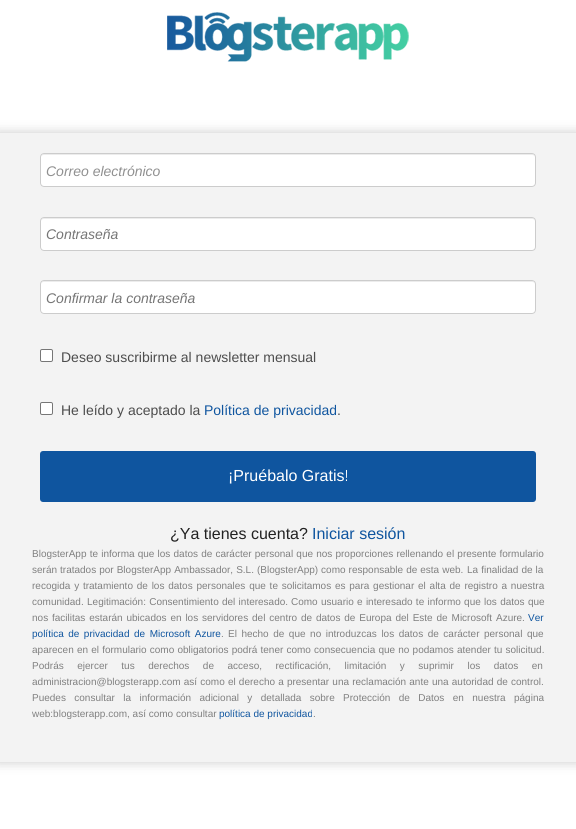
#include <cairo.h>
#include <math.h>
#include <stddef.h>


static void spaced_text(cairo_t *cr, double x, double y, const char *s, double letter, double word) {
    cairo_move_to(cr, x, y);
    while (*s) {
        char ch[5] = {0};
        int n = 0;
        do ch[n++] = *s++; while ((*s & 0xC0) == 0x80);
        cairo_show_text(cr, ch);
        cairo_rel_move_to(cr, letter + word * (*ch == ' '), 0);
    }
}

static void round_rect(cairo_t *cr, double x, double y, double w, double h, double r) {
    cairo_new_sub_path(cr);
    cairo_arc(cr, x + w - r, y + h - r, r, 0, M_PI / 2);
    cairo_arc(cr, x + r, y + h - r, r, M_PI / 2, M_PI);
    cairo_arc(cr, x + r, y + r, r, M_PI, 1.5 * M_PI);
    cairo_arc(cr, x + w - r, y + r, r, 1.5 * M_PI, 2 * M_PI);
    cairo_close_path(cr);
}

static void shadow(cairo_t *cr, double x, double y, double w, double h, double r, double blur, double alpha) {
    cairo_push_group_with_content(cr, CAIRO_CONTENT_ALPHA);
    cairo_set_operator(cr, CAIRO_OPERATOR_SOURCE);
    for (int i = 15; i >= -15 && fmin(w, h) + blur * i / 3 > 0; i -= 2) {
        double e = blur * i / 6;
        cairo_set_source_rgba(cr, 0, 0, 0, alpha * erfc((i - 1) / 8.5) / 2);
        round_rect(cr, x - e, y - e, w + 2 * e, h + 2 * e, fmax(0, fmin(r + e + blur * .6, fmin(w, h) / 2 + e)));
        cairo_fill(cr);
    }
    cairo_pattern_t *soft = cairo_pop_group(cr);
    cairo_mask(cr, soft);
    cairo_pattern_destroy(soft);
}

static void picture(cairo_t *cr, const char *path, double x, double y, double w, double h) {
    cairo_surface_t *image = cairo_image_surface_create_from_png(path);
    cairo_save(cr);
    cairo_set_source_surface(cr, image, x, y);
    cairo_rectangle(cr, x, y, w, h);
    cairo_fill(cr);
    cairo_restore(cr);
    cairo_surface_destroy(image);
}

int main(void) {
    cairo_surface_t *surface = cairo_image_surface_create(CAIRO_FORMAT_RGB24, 576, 829);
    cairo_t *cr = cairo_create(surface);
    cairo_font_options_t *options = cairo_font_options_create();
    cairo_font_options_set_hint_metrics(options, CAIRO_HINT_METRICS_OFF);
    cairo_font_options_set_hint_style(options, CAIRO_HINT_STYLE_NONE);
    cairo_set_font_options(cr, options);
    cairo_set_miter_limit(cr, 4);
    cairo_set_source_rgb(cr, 1, 1, 1);
    cairo_paint(cr);
    picture(cr, "img1.png", 167, 12, 242, 50);
    cairo_set_source_rgb(cr, 0.196, 0.196, 0.196);
    shadow(cr, -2, 131, 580, 633, 0, 5, 0.2);
    cairo_set_source_rgb(cr, 0.953, 0.953, 0.953);
    cairo_rectangle(cr, 0, 133, 576, 629);
    cairo_fill(cr);
    cairo_set_source_rgb(cr, 1, 1, 1);
    round_rect(cr, 40, 153, 496, 34, 4);
    cairo_fill(cr);
    cairo_set_source_rgb(cr, 0.925, 0.925, 0.925);
    cairo_new_path(cr);
    cairo_move_to(cr, 44, 155);
    cairo_line_to(cr, 532, 155);
    cairo_curve_to(cr, 534, 155, 535, 156, 535, 158);
    cairo_curve_to(cr, 535, 156, 534, 154, 532, 154);
    cairo_line_to(cr, 44, 154);
    cairo_curve_to(cr, 42, 154, 41, 156, 41, 158);
    cairo_curve_to(cr, 41, 156, 42, 155, 44, 155);
    cairo_close_path(cr);
    cairo_fill(cr);
    round_rect(cr, 40.5, 153.5, 495, 33, 3.5);
    cairo_set_source_rgb(cr, 0.8, 0.8, 0.8);
    cairo_set_line_width(cr, 1);
    cairo_stroke(cr);
    cairo_select_font_face(cr, "Liberation Sans", CAIRO_FONT_SLANT_ITALIC, CAIRO_FONT_WEIGHT_NORMAL);
    cairo_set_font_size(cr, 14);
    cairo_set_source_rgb(cr, 0.565, 0.565, 0.565);
    cairo_move_to(cr, 46, 176);
    cairo_show_text(cr, "Correo electrónico");
    cairo_set_source_rgb(cr, 1, 1, 1);
    round_rect(cr, 40, 217, 496, 34, 4);
    cairo_fill(cr);
    cairo_set_source_rgb(cr, 0.925, 0.925, 0.925);
    cairo_new_path(cr);
    cairo_move_to(cr, 44, 219);
    cairo_line_to(cr, 532, 219);
    cairo_curve_to(cr, 534, 219, 535, 220, 535, 222);
    cairo_curve_to(cr, 535, 220, 534, 218, 532, 218);
    cairo_line_to(cr, 44, 218);
    cairo_curve_to(cr, 42, 218, 41, 220, 41, 222);
    cairo_curve_to(cr, 41, 220, 42, 219, 44, 219);
    cairo_close_path(cr);
    cairo_fill(cr);
    round_rect(cr, 40.5, 217.5, 495, 33, 3.5);
    cairo_set_source_rgb(cr, 0.8, 0.8, 0.8);
    cairo_stroke(cr);
    cairo_set_source_rgb(cr, 0.459, 0.459, 0.459);
    cairo_move_to(cr, 46, 239);
    cairo_show_text(cr, "Contraseña");
    cairo_set_source_rgb(cr, 1, 1, 1);
    round_rect(cr, 40, 280, 496, 34, 4);
    cairo_fill(cr);
    cairo_set_source_rgb(cr, 0.925, 0.925, 0.925);
    cairo_new_path(cr);
    cairo_move_to(cr, 44, 282);
    cairo_line_to(cr, 532, 282);
    cairo_curve_to(cr, 534, 282, 535, 283, 535, 285);
    cairo_curve_to(cr, 535, 283, 534, 281, 532, 281);
    cairo_line_to(cr, 44, 281);
    cairo_curve_to(cr, 42, 281, 41, 283, 41, 285);
    cairo_curve_to(cr, 41, 283, 42, 282, 44, 282);
    cairo_close_path(cr);
    cairo_fill(cr);
    round_rect(cr, 40.5, 280.5, 495, 33, 3.5);
    cairo_set_source_rgb(cr, 0.8, 0.8, 0.8);
    cairo_stroke(cr);
    cairo_set_source_rgb(cr, 0.459, 0.459, 0.459);
    cairo_move_to(cr, 46, 303);
    cairo_show_text(cr, "Confirmar la contraseña");
    cairo_set_source_rgb(cr, 1, 1, 1);
    round_rect(cr, 40.5, 349.5, 12, 12, 1.5);
    cairo_fill_preserve(cr);
    cairo_set_source_rgb(cr, 0.463, 0.463, 0.463);
    cairo_stroke(cr);
    cairo_select_font_face(cr, "Liberation Sans", CAIRO_FONT_SLANT_NORMAL, CAIRO_FONT_WEIGHT_NORMAL);
    cairo_set_source_rgb(cr, 0.302, 0.302, 0.302);
    cairo_move_to(cr, 61, 362);
    cairo_show_text(cr, "Deseo suscribirme al newsletter mensual");
    cairo_set_source_rgb(cr, 1, 1, 1);
    round_rect(cr, 40.5, 402.5, 12, 12, 1.5);
    cairo_fill_preserve(cr);
    cairo_set_source_rgb(cr, 0.463, 0.463, 0.463);
    cairo_stroke(cr);
    cairo_set_source_rgb(cr, 0.302, 0.302, 0.302);
    cairo_move_to(cr, 61, 415);
    cairo_show_text(cr, "He leído y aceptado la");
    cairo_set_source_rgb(cr, 0.059, 0.333, 0.624);
    cairo_move_to(cr, 204, 415);
    cairo_show_text(cr, "Política de privacidad");
    cairo_set_source_rgb(cr, 0.302, 0.302, 0.302);
    cairo_move_to(cr, 337, 415);
    cairo_show_text(cr, ".");
    cairo_set_source_rgb(cr, 0.059, 0.333, 0.624);
    round_rect(cr, 40, 451, 496, 51, 3);
    cairo_fill(cr);
    cairo_set_font_size(cr, 16);
    cairo_set_source_rgb(cr, 1, 1, 1);
    cairo_move_to(cr, 228, 481);
    cairo_show_text(cr, "¡Pruébalo Gratis!");
    cairo_set_source_rgb(cr, 0.133, 0.133, 0.133);
    cairo_move_to(cr, 170, 539);
    cairo_show_text(cr, "¿Ya tienes cuenta?");
    cairo_set_source_rgb(cr, 0.059, 0.333, 0.624);
    cairo_move_to(cr, 312, 539);
    cairo_show_text(cr, "Iniciar sesión");
    cairo_set_font_size(cr, 10);
    cairo_set_source_rgb(cr, 0.502, 0.502, 0.502);
    spaced_text(cr, 32, 557, "BlogsterApp te informa que los datos de carácter personal que nos proporciones rellenando el presente formulario", 0, 0.4);
    spaced_text(cr, 32, 573, "serán tratados por BlogsterApp Ambassador, S.L. (BlogsterApp) como responsable de esta web.", 0, 0.25);
    spaced_text(cr, 467, 573, "La finalidad de la", 0, 0.25);
    spaced_text(cr, 32, 589, "recogida y tratamiento de los datos personales que te solicitamos es para gestionar el alta de registro a nuestra", 0, 1);
    cairo_move_to(cr, 32, 605);
    cairo_show_text(cr, "comunidad.");
    spaced_text(cr, 87, 605, "Legitimación: Consentimiento del interesado.", 0, 0.5);
    spaced_text(cr, 291, 605, "Como usuario e interesado te informo que los datos que", 0, 0.5);
    spaced_text(cr, 32, 621, "nos facilitas estarán ubicados en los servidores del centro de datos de Europa del Este de Microsoft Azure.", 0, 1.1);
    cairo_set_source_rgb(cr, 0.059, 0.333, 0.624);
    cairo_move_to(cr, 528, 621);
    cairo_show_text(cr, "Ver");
    spaced_text(cr, 32, 637, "política de privacidad de Microsoft Azure", 0, 1.75);
    cairo_set_source_rgb(cr, 0.502, 0.502, 0.502);
    cairo_move_to(cr, 221, 637);
    cairo_show_text(cr, ".");
    spaced_text(cr, 228, 637, "El hecho de que no introduzcas los datos de carácter personal que", 0, 1.75);
    spaced_text(cr, 32, 653, "aparecen en el formulario como obligatorios podrá tener como consecuencia que no podamos atender tu solicitud.", 0, 0.4);
    spaced_text(cr, 32, 669, "Podrás ejercer tus derechos de acceso, rectificación, limitación y suprimir los datos en", 0, 10.75);
    spaced_text(cr, 32, 685, "administracion@blogsterapp.com así como el derecho a presentar una reclamación ante una autoridad de control.", 0, 0.4);
    spaced_text(cr, 32, 701, "Puedes consultar la información adicional y detallada sobre Protección de Datos en nuestra página", 0, 5.6);
    cairo_move_to(cr, 32, 717);
    cairo_show_text(cr, "web:blogsterapp.com, así como consultar");
    cairo_set_source_rgb(cr, 0.059, 0.333, 0.624);
    cairo_move_to(cr, 219, 717);
    cairo_show_text(cr, "política de privacidad");
    cairo_set_source_rgb(cr, 0.502, 0.502, 0.502);
    cairo_move_to(cr, 313, 717);
    cairo_show_text(cr, ".");
    cairo_surface_write_to_png(surface, "page.png");
    cairo_font_options_destroy(options);
    cairo_destroy(cr);
    cairo_surface_destroy(surface);
    return 0;
}
